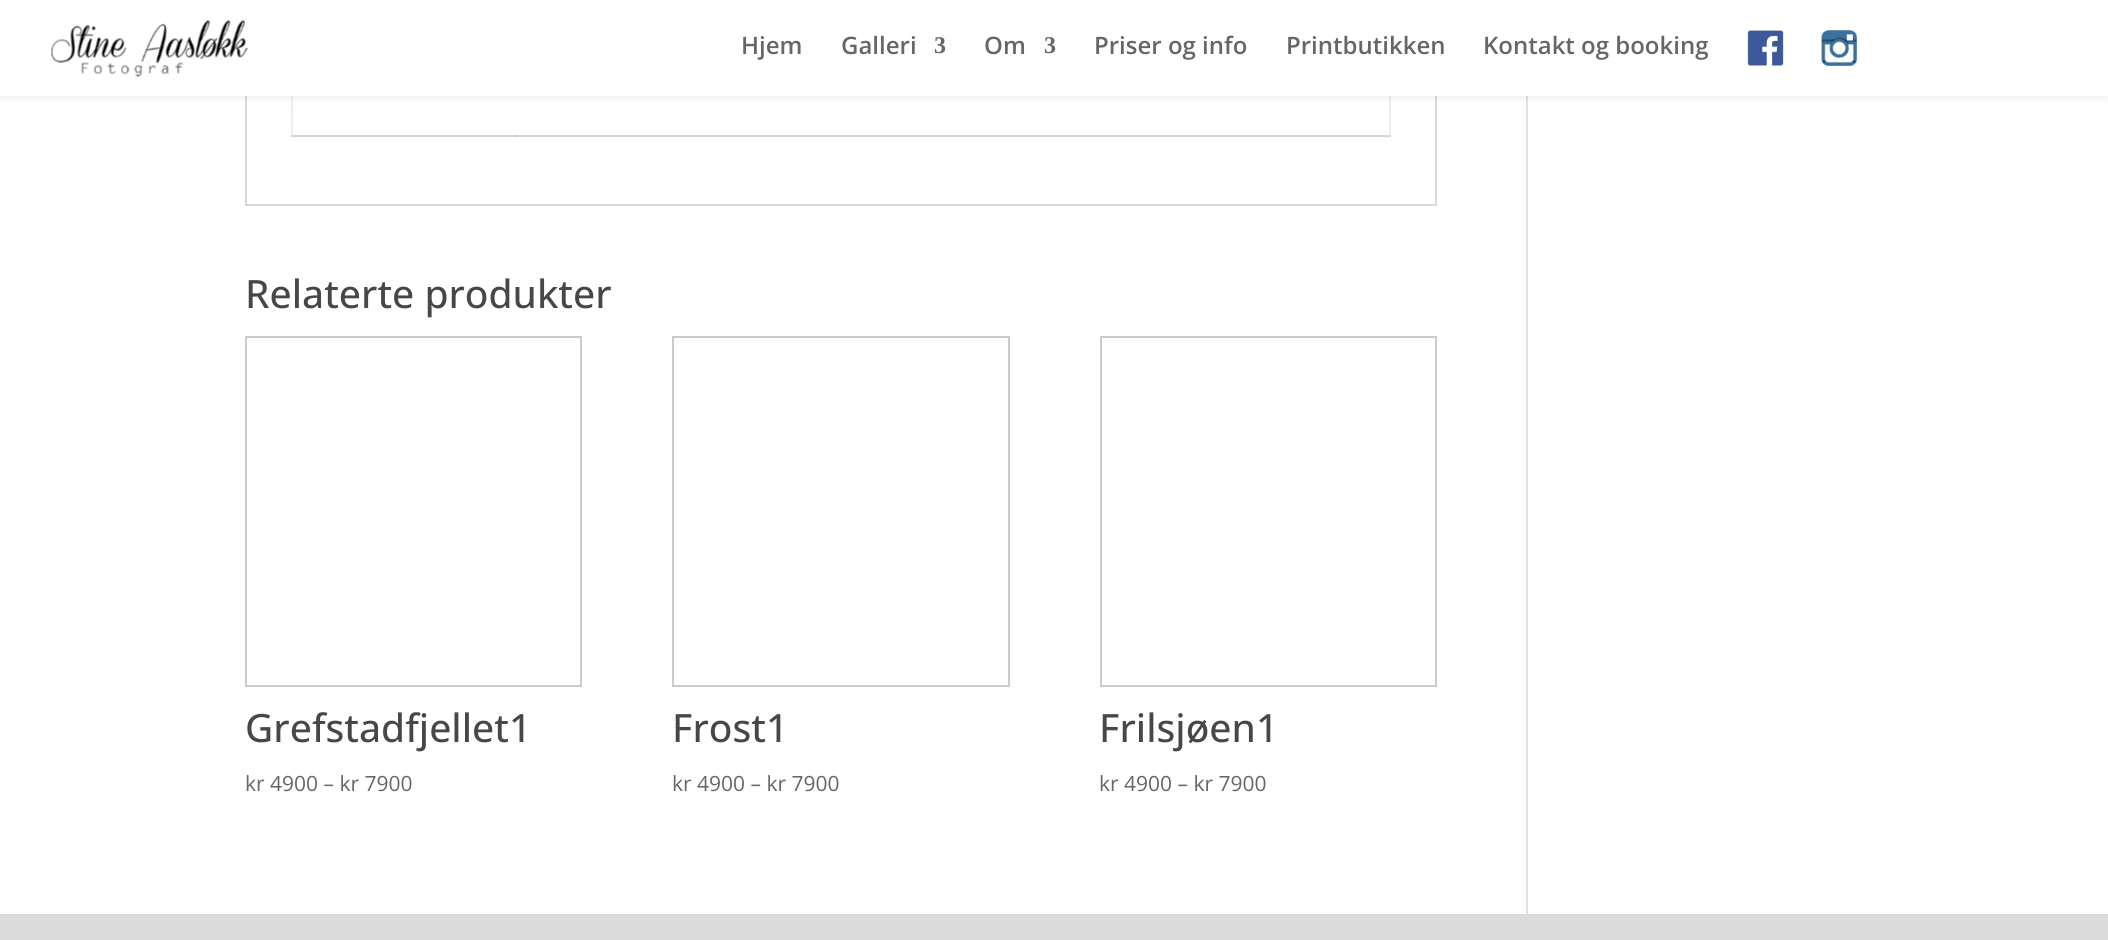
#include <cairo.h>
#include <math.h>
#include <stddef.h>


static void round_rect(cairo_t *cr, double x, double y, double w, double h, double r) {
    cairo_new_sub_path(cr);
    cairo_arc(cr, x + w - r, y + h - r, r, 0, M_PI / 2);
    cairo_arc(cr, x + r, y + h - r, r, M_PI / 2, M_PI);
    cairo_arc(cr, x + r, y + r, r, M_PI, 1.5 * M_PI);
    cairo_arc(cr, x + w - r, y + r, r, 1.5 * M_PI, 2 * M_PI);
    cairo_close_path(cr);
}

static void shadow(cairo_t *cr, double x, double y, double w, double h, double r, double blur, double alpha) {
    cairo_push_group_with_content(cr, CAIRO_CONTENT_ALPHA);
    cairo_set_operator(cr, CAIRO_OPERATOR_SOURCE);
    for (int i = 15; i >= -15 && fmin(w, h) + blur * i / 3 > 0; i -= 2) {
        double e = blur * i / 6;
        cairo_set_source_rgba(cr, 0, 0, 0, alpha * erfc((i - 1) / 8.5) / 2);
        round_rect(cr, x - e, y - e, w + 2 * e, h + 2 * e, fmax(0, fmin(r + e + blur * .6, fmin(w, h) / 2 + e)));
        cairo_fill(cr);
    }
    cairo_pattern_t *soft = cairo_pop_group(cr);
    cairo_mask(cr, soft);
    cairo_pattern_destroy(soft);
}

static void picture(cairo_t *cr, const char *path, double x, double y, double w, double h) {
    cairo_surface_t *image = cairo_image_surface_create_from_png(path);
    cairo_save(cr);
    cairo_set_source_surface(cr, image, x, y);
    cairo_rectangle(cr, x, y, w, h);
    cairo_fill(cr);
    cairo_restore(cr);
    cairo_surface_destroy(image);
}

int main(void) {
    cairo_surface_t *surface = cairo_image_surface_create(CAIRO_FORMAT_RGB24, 2108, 940);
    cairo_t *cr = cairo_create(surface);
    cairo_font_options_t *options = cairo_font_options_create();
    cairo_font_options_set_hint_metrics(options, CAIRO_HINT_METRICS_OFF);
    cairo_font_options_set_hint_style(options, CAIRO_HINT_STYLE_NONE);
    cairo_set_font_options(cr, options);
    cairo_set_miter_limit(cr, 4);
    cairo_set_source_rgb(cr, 1, 1, 1);
    cairo_paint(cr);
    cairo_rectangle(cr, 246, -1, 1190, 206);
    cairo_set_source_rgb(cr, 0.851, 0.851, 0.851);
    cairo_stroke(cr);
    cairo_set_source_rgb(cr, 0.933, 0.933, 0.933);
    cairo_rectangle(cr, 1389, 96, 2, 41);
    cairo_fill(cr);
    cairo_set_source_rgb(cr, 0.839, 0.839, 0.839);
    cairo_rectangle(cr, 291, 135, 1100, 2);
    cairo_fill(cr);
    cairo_set_source_rgb(cr, 0.933, 0.933, 0.933);
    cairo_rectangle(cr, 291, 96, 2, 41);
    cairo_fill(cr);
    cairo_set_source_rgb(cr, 0.886, 0.886, 0.886);
    cairo_rectangle(cr, 1526, 96, 2, 818);
    cairo_fill(cr);
    cairo_set_source_rgb(cr, 0, 0, 0);
    shadow(cr, 0, 0, 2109, 96, 0, 5, 0.1);
    cairo_set_source_rgb(cr, 1, 1, 1);
    cairo_rectangle(cr, 0, 0, 2108, 96);
    cairo_fill(cr);
    picture(cr, "img1.png", 50, 19, 198, 58);
    cairo_select_font_face(cr, "Open Sans SemiBold", CAIRO_FONT_SLANT_NORMAL, CAIRO_FONT_WEIGHT_NORMAL);
    cairo_set_font_size(cr, 24);
    cairo_set_source_rgb(cr, 0.4, 0.4, 0.4);
    cairo_move_to(cr, 741, 54);
    cairo_show_text(cr, "Hjem");
    cairo_move_to(cr, 841, 54);
    cairo_show_text(cr, "Galleri");
    cairo_select_font_face(cr, "Liberation Serif", CAIRO_FONT_SLANT_NORMAL, CAIRO_FONT_WEIGHT_BOLD);
    cairo_move_to(cr, 934, 53);
    cairo_show_text(cr, "3");
    cairo_select_font_face(cr, "Open Sans SemiBold", CAIRO_FONT_SLANT_NORMAL, CAIRO_FONT_WEIGHT_NORMAL);
    cairo_move_to(cr, 984, 54);
    cairo_show_text(cr, "Om");
    cairo_select_font_face(cr, "Liberation Serif", CAIRO_FONT_SLANT_NORMAL, CAIRO_FONT_WEIGHT_BOLD);
    cairo_move_to(cr, 1044, 53);
    cairo_show_text(cr, "3");
    cairo_select_font_face(cr, "Open Sans SemiBold", CAIRO_FONT_SLANT_NORMAL, CAIRO_FONT_WEIGHT_NORMAL);
    cairo_move_to(cr, 1094, 54);
    cairo_show_text(cr, "Priser og info");
    cairo_move_to(cr, 1286, 54);
    cairo_show_text(cr, "Printbutikken");
    cairo_move_to(cr, 1483, 54);
    cairo_show_text(cr, "Kontakt og booking");
    picture(cr, "img2.png", 1747, 30, 37, 36);
    picture(cr, "img3.png", 1821, 30, 36, 36);
    cairo_set_source_rgb(cr, 0.839, 0.839, 0.839);
    cairo_rectangle(cr, 291, 135, 2, 2);
    cairo_fill(cr);
    cairo_set_source_rgb(cr, 0.757, 0.757, 0.757);
    cairo_rectangle(cr, 516, 135, 2, 2);
    cairo_fill(cr);
    cairo_select_font_face(cr, "Open Sans Medium", CAIRO_FONT_SLANT_NORMAL, CAIRO_FONT_WEIGHT_NORMAL);
    cairo_set_font_size(cr, 39);
    cairo_set_source_rgb(cr, 0.278, 0.278, 0.278);
    cairo_move_to(cr, 245, 308);
    cairo_show_text(cr, "Relaterte produkter");
    cairo_rectangle(cr, 246, 337, 335, 349);
    cairo_set_source_rgb(cr, 0.8, 0.8, 0.8);
    cairo_stroke(cr);
    cairo_set_source_rgb(cr, 0.278, 0.278, 0.278);
    cairo_move_to(cr, 245, 742);
    cairo_show_text(cr, "Grefstadfjellet1");
    cairo_select_font_face(cr, "Open Sans", CAIRO_FONT_SLANT_NORMAL, CAIRO_FONT_WEIGHT_NORMAL);
    cairo_set_font_size(cr, 21);
    cairo_set_source_rgb(cr, 0.4, 0.4, 0.4);
    cairo_move_to(cr, 245, 791);
    cairo_show_text(cr, "kr 4900 – kr 7900");
    cairo_rectangle(cr, 673, 337, 336, 349);
    cairo_set_source_rgb(cr, 0.8, 0.8, 0.8);
    cairo_stroke(cr);
    cairo_select_font_face(cr, "Open Sans Medium", CAIRO_FONT_SLANT_NORMAL, CAIRO_FONT_WEIGHT_NORMAL);
    cairo_set_font_size(cr, 39);
    cairo_set_source_rgb(cr, 0.278, 0.278, 0.278);
    cairo_move_to(cr, 672, 742);
    cairo_show_text(cr, "Frost1");
    cairo_select_font_face(cr, "Open Sans", CAIRO_FONT_SLANT_NORMAL, CAIRO_FONT_WEIGHT_NORMAL);
    cairo_set_font_size(cr, 21);
    cairo_set_source_rgb(cr, 0.4, 0.4, 0.4);
    cairo_move_to(cr, 672, 791);
    cairo_show_text(cr, "kr 4900 – kr 7900");
    cairo_rectangle(cr, 1101, 337, 335, 349);
    cairo_set_source_rgb(cr, 0.8, 0.8, 0.8);
    cairo_stroke(cr);
    cairo_select_font_face(cr, "Open Sans Medium", CAIRO_FONT_SLANT_NORMAL, CAIRO_FONT_WEIGHT_NORMAL);
    cairo_set_font_size(cr, 39);
    cairo_set_source_rgb(cr, 0.278, 0.278, 0.278);
    cairo_move_to(cr, 1099, 742);
    cairo_show_text(cr, "Frilsjøen1");
    cairo_select_font_face(cr, "Open Sans", CAIRO_FONT_SLANT_NORMAL, CAIRO_FONT_WEIGHT_NORMAL);
    cairo_set_font_size(cr, 21);
    cairo_set_source_rgb(cr, 0.4, 0.4, 0.4);
    cairo_move_to(cr, 1099, 791);
    cairo_show_text(cr, "kr 4900 – kr 7900");
    cairo_set_source_rgb(cr, 0.859, 0.859, 0.859);
    cairo_rectangle(cr, 0, 914, 2108, 26);
    cairo_fill(cr);
    cairo_surface_write_to_png(surface, "page.png");
    cairo_font_options_destroy(options);
    cairo_destroy(cr);
    cairo_surface_destroy(surface);
    return 0;
}
